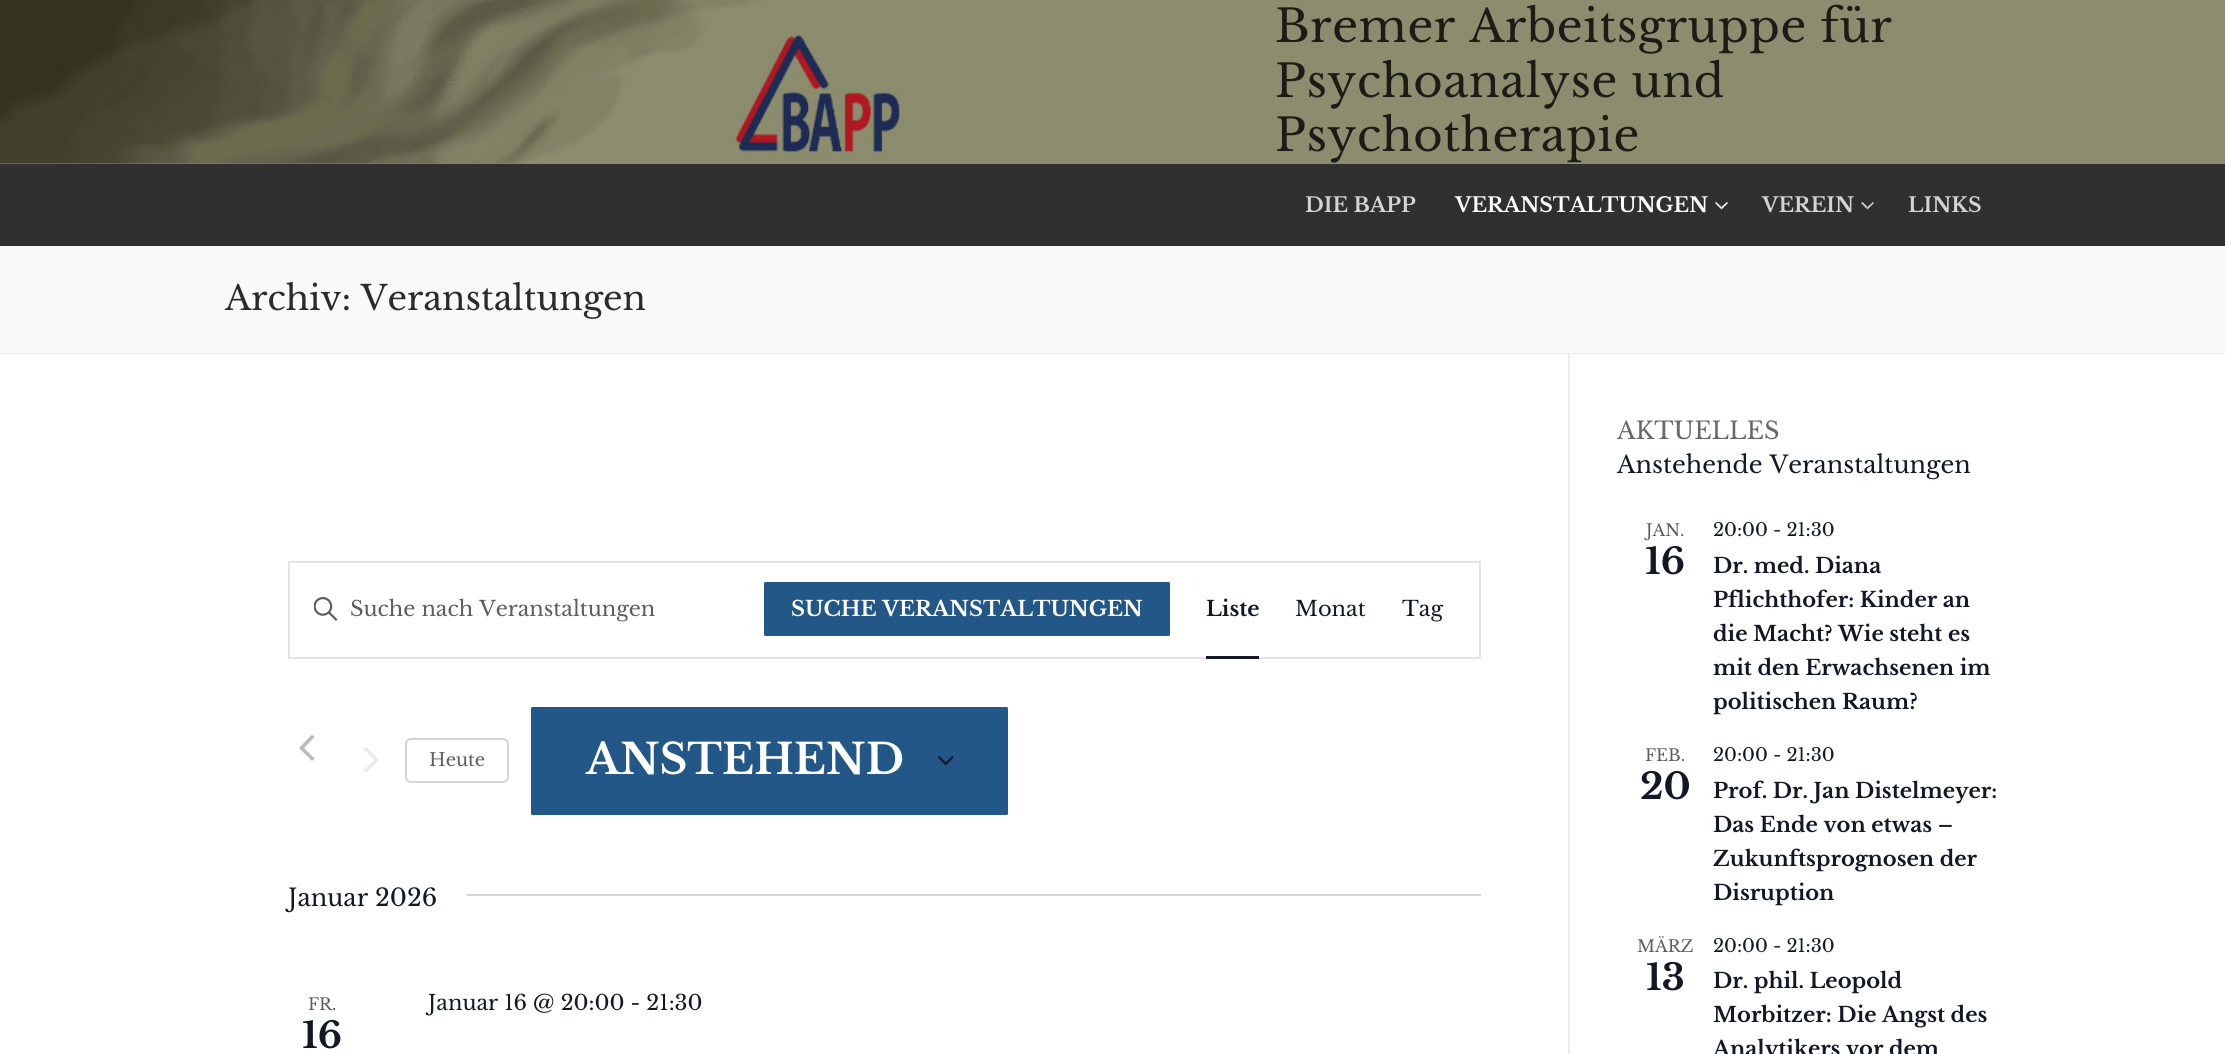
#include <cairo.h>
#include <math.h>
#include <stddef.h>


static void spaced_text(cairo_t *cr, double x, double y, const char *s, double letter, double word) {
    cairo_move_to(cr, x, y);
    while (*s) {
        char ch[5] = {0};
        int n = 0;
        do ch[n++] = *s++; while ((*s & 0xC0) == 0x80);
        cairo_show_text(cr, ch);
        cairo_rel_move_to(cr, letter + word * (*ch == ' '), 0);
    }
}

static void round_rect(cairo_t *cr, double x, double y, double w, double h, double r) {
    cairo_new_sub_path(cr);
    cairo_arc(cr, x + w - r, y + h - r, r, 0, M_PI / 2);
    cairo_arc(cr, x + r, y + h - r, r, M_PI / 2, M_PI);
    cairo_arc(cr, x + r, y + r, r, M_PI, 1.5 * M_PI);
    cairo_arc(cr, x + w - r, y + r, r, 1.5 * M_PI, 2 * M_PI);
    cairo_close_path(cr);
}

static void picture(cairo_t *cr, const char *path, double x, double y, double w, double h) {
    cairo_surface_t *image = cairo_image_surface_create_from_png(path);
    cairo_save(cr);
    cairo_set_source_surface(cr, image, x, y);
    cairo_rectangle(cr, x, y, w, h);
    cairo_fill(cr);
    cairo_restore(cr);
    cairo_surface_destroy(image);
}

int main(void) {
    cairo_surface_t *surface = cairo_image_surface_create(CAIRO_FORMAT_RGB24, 2225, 1054);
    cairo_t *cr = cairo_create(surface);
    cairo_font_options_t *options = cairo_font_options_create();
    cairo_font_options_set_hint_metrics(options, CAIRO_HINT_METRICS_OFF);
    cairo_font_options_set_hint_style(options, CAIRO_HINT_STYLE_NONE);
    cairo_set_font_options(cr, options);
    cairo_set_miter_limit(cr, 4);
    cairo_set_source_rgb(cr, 0.976, 0.976, 0.976);
    cairo_paint(cr);
    cairo_set_source_rgb(cr, 0.549, 0.553, 0.431);
    cairo_rectangle(cr, 0, 0, 2225, 164);
    cairo_fill(cr);
    picture(cr, "img1.png", 0, 0, 905, 164);
    cairo_select_font_face(cr, "Libre Baskerville", CAIRO_FONT_SLANT_NORMAL, CAIRO_FONT_WEIGHT_NORMAL);
    cairo_set_font_size(cr, 45);
    cairo_set_source_rgb(cr, 0.11, 0.11, 0.086);
    spaced_text(cr, 1275, 42, "Bremer Arbeitsgruppe für", 0.6, 0);
    spaced_text(cr, 1275, 97, "Psychoanalyse und", 0.6, 0);
    spaced_text(cr, 1275, 151, "Psychotherapie", 0.6, 0);
    cairo_set_source_rgb(cr, 0.188, 0.188, 0.188);
    cairo_rectangle(cr, 0, 164, 2225, 82);
    cairo_fill(cr);
    cairo_select_font_face(cr, "Libre Baskerville", CAIRO_FONT_SLANT_NORMAL, CAIRO_FONT_WEIGHT_BOLD);
    cairo_set_font_size(cr, 20.4);
    cairo_set_source_rgb(cr, 0.831, 0.831, 0.831);
    cairo_move_to(cr, 1305, 212);
    cairo_show_text(cr, "DIE BAPP");
    cairo_set_source_rgb(cr, 1, 1, 1);
    cairo_move_to(cr, 1455, 212);
    cairo_show_text(cr, "VERANSTALTUNGEN");
    cairo_set_source_rgb(cr, 0.992, 0.992, 0.992);
    cairo_new_path(cr);
    cairo_move_to(cr, 1721.5, 209.5);
    cairo_line_to(cr, 1715, 203);
    cairo_line_to(cr, 1716, 202);
    cairo_line_to(cr, 1721.5, 207);
    cairo_close_path(cr);
    cairo_fill(cr);
    cairo_set_source_rgba(cr, 1, 1, 1, 0.99);
    cairo_new_path(cr);
    cairo_move_to(cr, 1728, 203);
    cairo_line_to(cr, 1721.5, 209.5);
    cairo_line_to(cr, 1721.5, 207);
    cairo_line_to(cr, 1727, 202);
    cairo_close_path(cr);
    cairo_fill(cr);
    cairo_set_source_rgb(cr, 0.831, 0.831, 0.831);
    cairo_move_to(cr, 1762, 212);
    cairo_show_text(cr, "VEREIN");
    cairo_new_path(cr);
    cairo_move_to(cr, 1867.5, 209.5);
    cairo_line_to(cr, 1861, 203);
    cairo_line_to(cr, 1862.5, 202);
    cairo_line_to(cr, 1867.5, 207);
    cairo_close_path(cr);
    cairo_fill(cr);
    cairo_set_source_rgba(cr, 1, 1, 1, 0.79);
    cairo_new_path(cr);
    cairo_move_to(cr, 1874, 203);
    cairo_line_to(cr, 1867.5, 209.5);
    cairo_line_to(cr, 1867.5, 207);
    cairo_line_to(cr, 1873, 202);
    cairo_close_path(cr);
    cairo_fill(cr);
    cairo_set_source_rgb(cr, 0.831, 0.831, 0.831);
    cairo_move_to(cr, 1908, 212);
    cairo_show_text(cr, "LINKS");
    cairo_set_source_rgb(cr, 0.918, 0.925, 0.933);
    cairo_rectangle(cr, 0, 353, 2225, 1);
    cairo_fill(cr);
    cairo_select_font_face(cr, "Libre Baskerville", CAIRO_FONT_SLANT_NORMAL, CAIRO_FONT_WEIGHT_NORMAL);
    cairo_set_font_size(cr, 34);
    cairo_set_source_rgb(cr, 0.169, 0.169, 0.169);
    cairo_move_to(cr, 225, 310);
    cairo_show_text(cr, "Archiv: Veranstaltungen");
    cairo_set_source_rgb(cr, 1, 1, 1);
    cairo_rectangle(cr, 0, 354, 2225, 700);
    cairo_fill(cr);
    cairo_set_source_rgb(cr, 0.918, 0.925, 0.933);
    cairo_rectangle(cr, 1568, 354, 2, 700);
    cairo_fill(cr);
    cairo_rectangle(cr, 289, 562, 1191, 96);
    cairo_set_source_rgb(cr, 0.894, 0.894, 0.894);
    cairo_stroke(cr);
    picture(cr, "img2.png", 314, 597, 24, 24);
    cairo_set_font_size(cr, 21);
    cairo_set_source_rgb(cr, 0.365, 0.365, 0.365);
    cairo_move_to(cr, 350, 616);
    cairo_show_text(cr, "Suche nach Veranstaltungen");
    cairo_set_source_rgb(cr, 0.137, 0.341, 0.529);
    round_rect(cr, 764, 582, 406, 54, 1.5);
    cairo_fill(cr);
    cairo_select_font_face(cr, "Libre Baskerville", CAIRO_FONT_SLANT_NORMAL, CAIRO_FONT_WEIGHT_BOLD);
    cairo_set_source_rgb(cr, 1, 1, 1);
    cairo_move_to(cr, 791, 616);
    cairo_show_text(cr, "SUCHE VERANSTALTUNGEN");
    cairo_set_source_rgb(cr, 0.078, 0.094, 0.153);
    cairo_move_to(cr, 1206, 616);
    cairo_show_text(cr, "Liste");
    cairo_rectangle(cr, 1206, 656, 53, 3);
    cairo_fill(cr);
    cairo_select_font_face(cr, "Libre Baskerville", CAIRO_FONT_SLANT_NORMAL, CAIRO_FONT_WEIGHT_NORMAL);
    cairo_move_to(cr, 1295, 616);
    cairo_show_text(cr, "Monat");
    cairo_move_to(cr, 1402, 616);
    cairo_show_text(cr, "Tag");
    cairo_set_source_rgb(cr, 0.729, 0.729, 0.729);
    cairo_new_path(cr);
    cairo_move_to(cr, 314.5, 758.5);
    cairo_line_to(cr, 312, 761);
    cairo_line_to(cr, 299, 748);
    cairo_line_to(cr, 312, 734.5);
    cairo_line_to(cr, 314.5, 737);
    cairo_line_to(cr, 304, 748);
    cairo_close_path(cr);
    cairo_fill(cr);
    cairo_set_source_rgb(cr, 0.918, 0.918, 0.918);
    cairo_new_path(cr);
    cairo_move_to(cr, 363.5, 749);
    cairo_line_to(cr, 366, 746.5);
    cairo_line_to(cr, 379, 760);
    cairo_line_to(cr, 366, 773);
    cairo_line_to(cr, 363.5, 770.5);
    cairo_line_to(cr, 374, 760);
    cairo_close_path(cr);
    cairo_fill(cr);
    round_rect(cr, 406, 739, 102, 43, 5);
    cairo_set_source_rgb(cr, 0.835, 0.835, 0.835);
    cairo_stroke(cr);
    cairo_set_font_size(cr, 18);
    cairo_set_source_rgb(cr, 0.365, 0.365, 0.365);
    cairo_move_to(cr, 429, 766);
    cairo_show_text(cr, "Heute");
    cairo_set_source_rgb(cr, 0.137, 0.341, 0.529);
    round_rect(cr, 531, 707, 477, 108, 1.5);
    cairo_fill(cr);
    cairo_select_font_face(cr, "Libre Baskerville", CAIRO_FONT_SLANT_NORMAL, CAIRO_FONT_WEIGHT_BOLD);
    cairo_set_font_size(cr, 42);
    cairo_set_source_rgb(cr, 1, 1, 1);
    cairo_move_to(cr, 586, 774);
    cairo_show_text(cr, "ANSTEHEND");
    picture(cr, "img3.png", 938, 755, 16, 11);
    cairo_select_font_face(cr, "Libre Baskerville", CAIRO_FONT_SLANT_NORMAL, CAIRO_FONT_WEIGHT_NORMAL);
    cairo_set_font_size(cr, 24);
    cairo_set_source_rgb(cr, 0.078, 0.094, 0.153);
    cairo_move_to(cr, 288, 906);
    cairo_show_text(cr, "Januar 2026");
    cairo_set_source_rgb(cr, 0.835, 0.835, 0.835);
    cairo_rectangle(cr, 467, 894, 1014, 2);
    cairo_fill(cr);
    cairo_set_font_size(cr, 16.5);
    cairo_set_source_rgb(cr, 0.365, 0.365, 0.365);
    cairo_move_to(cr, 308, 1010);
    cairo_show_text(cr, "FR.");
    cairo_select_font_face(cr, "Libre Baskerville", CAIRO_FONT_SLANT_NORMAL, CAIRO_FONT_WEIGHT_BOLD);
    cairo_set_font_size(cr, 36);
    cairo_set_source_rgb(cr, 0.078, 0.094, 0.153);
    cairo_move_to(cr, 302, 1048);
    cairo_show_text(cr, "16");
    cairo_select_font_face(cr, "Libre Baskerville", CAIRO_FONT_SLANT_NORMAL, CAIRO_FONT_WEIGHT_NORMAL);
    cairo_set_font_size(cr, 21);
    cairo_move_to(cr, 428, 1010);
    cairo_show_text(cr, "Januar 16 @ 20:00 - 21:30");
    cairo_set_font_size(cr, 24);
    cairo_set_source_rgb(cr, 0.408, 0.408, 0.408);
    cairo_move_to(cr, 1617, 439);
    cairo_show_text(cr, "AKTUELLES");
    cairo_set_source_rgb(cr, 0.078, 0.094, 0.153);
    cairo_move_to(cr, 1617, 473);
    cairo_show_text(cr, "Anstehende Veranstaltungen");
    cairo_set_font_size(cr, 16.5);
    cairo_set_source_rgb(cr, 0.365, 0.365, 0.365);
    cairo_move_to(cr, 1646, 536);
    cairo_show_text(cr, "JAN.");
    cairo_select_font_face(cr, "Libre Baskerville", CAIRO_FONT_SLANT_NORMAL, CAIRO_FONT_WEIGHT_BOLD);
    cairo_set_font_size(cr, 36);
    cairo_set_source_rgb(cr, 0.078, 0.094, 0.153);
    cairo_move_to(cr, 1645, 574);
    cairo_show_text(cr, "16");
    cairo_select_font_face(cr, "Libre Baskerville", CAIRO_FONT_SLANT_NORMAL, CAIRO_FONT_WEIGHT_NORMAL);
    cairo_set_font_size(cr, 18);
    cairo_move_to(cr, 1713, 536);
    cairo_show_text(cr, "20:00 - 21:30");
    cairo_select_font_face(cr, "Libre Baskerville", CAIRO_FONT_SLANT_NORMAL, CAIRO_FONT_WEIGHT_BOLD);
    cairo_set_font_size(cr, 21);
    cairo_move_to(cr, 1713, 573);
    cairo_show_text(cr, "Dr. med. Diana");
    cairo_move_to(cr, 1713, 607);
    cairo_show_text(cr, "Pflichthofer: Kinder an");
    cairo_move_to(cr, 1713, 641);
    cairo_show_text(cr, "die Macht? Wie steht es");
    cairo_move_to(cr, 1713, 675);
    cairo_show_text(cr, "mit den Erwachsenen im");
    cairo_move_to(cr, 1713, 709);
    cairo_show_text(cr, "politischen Raum?");
    cairo_select_font_face(cr, "Libre Baskerville", CAIRO_FONT_SLANT_NORMAL, CAIRO_FONT_WEIGHT_NORMAL);
    cairo_set_font_size(cr, 16.5);
    cairo_set_source_rgb(cr, 0.365, 0.365, 0.365);
    cairo_move_to(cr, 1645, 761);
    cairo_show_text(cr, "FEB.");
    cairo_select_font_face(cr, "Libre Baskerville", CAIRO_FONT_SLANT_NORMAL, CAIRO_FONT_WEIGHT_BOLD);
    cairo_set_font_size(cr, 36);
    cairo_set_source_rgb(cr, 0.078, 0.094, 0.153);
    cairo_move_to(cr, 1640, 799);
    cairo_show_text(cr, "20");
    cairo_select_font_face(cr, "Libre Baskerville", CAIRO_FONT_SLANT_NORMAL, CAIRO_FONT_WEIGHT_NORMAL);
    cairo_set_font_size(cr, 18);
    cairo_move_to(cr, 1713, 761);
    cairo_show_text(cr, "20:00 - 21:30");
    cairo_select_font_face(cr, "Libre Baskerville", CAIRO_FONT_SLANT_NORMAL, CAIRO_FONT_WEIGHT_BOLD);
    cairo_set_font_size(cr, 21);
    cairo_move_to(cr, 1713, 798);
    cairo_show_text(cr, "Prof. Dr. Jan Distelmeyer:");
    cairo_move_to(cr, 1713, 832);
    cairo_show_text(cr, "Das Ende von etwas –");
    cairo_move_to(cr, 1713, 866);
    cairo_show_text(cr, "Zukunftsprognosen der");
    cairo_move_to(cr, 1713, 900);
    cairo_show_text(cr, "Disruption");
    cairo_select_font_face(cr, "Libre Baskerville", CAIRO_FONT_SLANT_NORMAL, CAIRO_FONT_WEIGHT_NORMAL);
    cairo_set_font_size(cr, 16.5);
    cairo_set_source_rgb(cr, 0.365, 0.365, 0.365);
    cairo_move_to(cr, 1637, 952);
    cairo_show_text(cr, "MÄRZ");
    cairo_select_font_face(cr, "Libre Baskerville", CAIRO_FONT_SLANT_NORMAL, CAIRO_FONT_WEIGHT_BOLD);
    cairo_set_font_size(cr, 36);
    cairo_set_source_rgb(cr, 0.078, 0.094, 0.153);
    cairo_move_to(cr, 1646, 990);
    cairo_show_text(cr, "13");
    cairo_select_font_face(cr, "Libre Baskerville", CAIRO_FONT_SLANT_NORMAL, CAIRO_FONT_WEIGHT_NORMAL);
    cairo_set_font_size(cr, 18);
    cairo_move_to(cr, 1713, 952);
    cairo_show_text(cr, "20:00 - 21:30");
    cairo_select_font_face(cr, "Libre Baskerville", CAIRO_FONT_SLANT_NORMAL, CAIRO_FONT_WEIGHT_BOLD);
    cairo_set_font_size(cr, 21);
    cairo_move_to(cr, 1713, 988);
    cairo_show_text(cr, "Dr. phil. Leopold");
    cairo_move_to(cr, 1713, 1022);
    cairo_show_text(cr, "Morbitzer: Die Angst des");
    cairo_move_to(cr, 1713, 1056);
    cairo_show_text(cr, "Analytikers vor dem");
    cairo_surface_write_to_png(surface, "page.png");
    cairo_font_options_destroy(options);
    cairo_destroy(cr);
    cairo_surface_destroy(surface);
    return 0;
}
